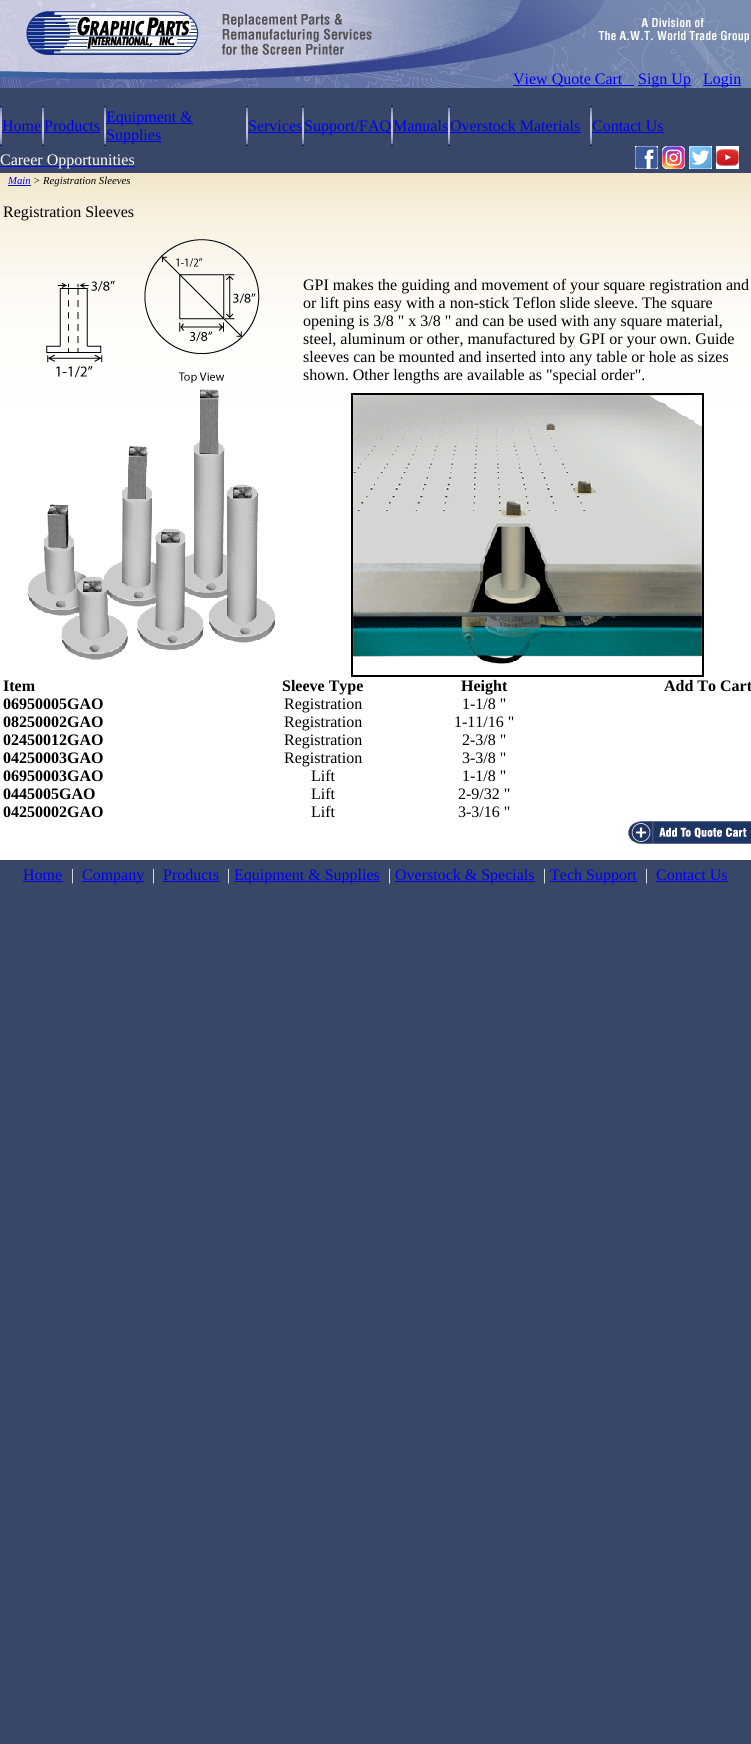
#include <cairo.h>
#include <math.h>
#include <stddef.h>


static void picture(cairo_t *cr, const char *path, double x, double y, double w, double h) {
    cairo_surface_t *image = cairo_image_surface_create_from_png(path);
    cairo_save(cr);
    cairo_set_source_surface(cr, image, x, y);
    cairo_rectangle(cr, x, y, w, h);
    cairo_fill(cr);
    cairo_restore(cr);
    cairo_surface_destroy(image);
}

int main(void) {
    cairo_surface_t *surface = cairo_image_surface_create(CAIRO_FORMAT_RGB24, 751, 1744);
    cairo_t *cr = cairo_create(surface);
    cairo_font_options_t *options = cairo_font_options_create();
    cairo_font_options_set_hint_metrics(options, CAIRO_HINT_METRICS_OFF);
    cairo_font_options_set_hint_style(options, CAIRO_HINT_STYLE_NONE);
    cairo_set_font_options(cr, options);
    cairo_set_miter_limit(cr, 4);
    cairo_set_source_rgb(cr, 0.22, 0.278, 0.408);
    cairo_paint(cr);
    picture(cr, "img1.png", 0, 0, 751, 70);
    picture(cr, "img2.png", 0, 70, 751, 18);
    cairo_set_source_rgb(cr, 0, 0, 0.933);
    cairo_rectangle(cr, 513, 85, 121, 1);
    cairo_fill(cr);
    cairo_select_font_face(cr, "Liberation Serif", CAIRO_FONT_SLANT_NORMAL, CAIRO_FONT_WEIGHT_NORMAL);
    cairo_set_font_size(cr, 16);
    cairo_move_to(cr, 513, 84);
    cairo_show_text(cr, "View Quote Cart");
    cairo_rectangle(cr, 638, 85, 53, 1);
    cairo_fill(cr);
    cairo_move_to(cr, 638, 84);
    cairo_show_text(cr, "Sign Up");
    cairo_rectangle(cr, 703, 85, 38, 1);
    cairo_fill(cr);
    cairo_move_to(cr, 703, 84);
    cairo_show_text(cr, "Login");
    picture(cr, "img3.png", 0, 106, 2, 40);
    cairo_move_to(cr, 2, 131);
    cairo_show_text(cr, "Home");
    cairo_rectangle(cr, 2, 132, 39, 1);
    cairo_fill(cr);
    picture(cr, "img3.png", 42, 106, 2, 40);
    cairo_move_to(cr, 44, 131);
    cairo_show_text(cr, "Products");
    cairo_rectangle(cr, 44, 132, 56, 1);
    cairo_fill(cr);
    picture(cr, "img3.png", 104, 106, 2, 40);
    cairo_rectangle(cr, 106, 123, 87, 1);
    cairo_fill(cr);
    cairo_move_to(cr, 106, 122);
    cairo_show_text(cr, "Equipment &");
    cairo_rectangle(cr, 106, 141, 55, 1);
    cairo_fill(cr);
    cairo_move_to(cr, 106, 140);
    cairo_show_text(cr, "Supplies");
    picture(cr, "img3.png", 246, 106, 2, 40);
    cairo_move_to(cr, 248, 131);
    cairo_show_text(cr, "Services");
    cairo_rectangle(cr, 248, 132, 54, 1);
    cairo_fill(cr);
    picture(cr, "img3.png", 302, 106, 2, 40);
    cairo_rectangle(cr, 304, 132, 87, 1);
    cairo_fill(cr);
    cairo_move_to(cr, 304, 131);
    cairo_show_text(cr, "Support/FAQ");
    picture(cr, "img3.png", 391, 106, 2, 40);
    cairo_move_to(cr, 393, 131);
    cairo_show_text(cr, "Manuals");
    cairo_rectangle(cr, 393, 132, 55, 1);
    cairo_fill(cr);
    picture(cr, "img3.png", 448, 106, 2, 40);
    cairo_move_to(cr, 450, 131);
    cairo_show_text(cr, "Overstock Materials");
    cairo_rectangle(cr, 450, 132, 131, 1);
    cairo_fill(cr);
    picture(cr, "img3.png", 590, 106, 2, 40);
    cairo_move_to(cr, 592, 131);
    cairo_show_text(cr, "Contact Us");
    cairo_rectangle(cr, 592, 132, 72, 1);
    cairo_fill(cr);
    cairo_rectangle(cr, 0, 166, 135, 1);
    cairo_fill(cr);
    cairo_set_source_rgb(cr, 1, 1, 1);
    cairo_move_to(cr, 0, 165);
    cairo_show_text(cr, "Career Opportunities");
    picture(cr, "img4.png", 635, 146, 23, 23);
    picture(cr, "img5.png", 662, 146, 23, 23);
    picture(cr, "img6.png", 689, 146, 23, 23);
    picture(cr, "img7.png", 716, 146, 23, 23);
    picture(cr, "img8.png", 0, 173, 751, 687);
    cairo_select_font_face(cr, "Liberation Serif", CAIRO_FONT_SLANT_ITALIC, CAIRO_FONT_WEIGHT_NORMAL);
    cairo_set_font_size(cr, 10.75);
    cairo_set_source_rgb(cr, 0, 0, 0.933);
    cairo_move_to(cr, 8, 184);
    cairo_show_text(cr, "Main");
    cairo_rectangle(cr, 8, 185, 23, 1);
    cairo_fill(cr);
    cairo_set_source_rgb(cr, 0, 0, 0);
    cairo_move_to(cr, 33, 184);
    cairo_show_text(cr, "> Registration Sleeves");
    cairo_select_font_face(cr, "Liberation Serif", CAIRO_FONT_SLANT_NORMAL, CAIRO_FONT_WEIGHT_NORMAL);
    cairo_set_font_size(cr, 16);
    cairo_move_to(cr, 3, 217);
    cairo_show_text(cr, "Registration Sleeves");
    picture(cr, "img9.png", 46, 239, 214, 144);
    cairo_move_to(cr, 303, 290);
    cairo_show_text(cr, "GPI makes the guiding and movement of your square registration and");
    cairo_move_to(cr, 303, 308);
    cairo_show_text(cr, "or lift pins easy with a non-stick Teflon slide sleeve. The square");
    cairo_move_to(cr, 303, 326);
    cairo_show_text(cr, "opening is 3/8 \" x 3/8 \" and can be used with any square material,");
    cairo_move_to(cr, 303, 344);
    cairo_show_text(cr, "steel, aluminum or other, manufactured by GPI or your own. Guide");
    cairo_move_to(cr, 303, 362);
    cairo_show_text(cr, "sleeves can be mounted and inserted into any table or hole as sizes");
    cairo_move_to(cr, 303, 380);
    cairo_show_text(cr, "shown. Other lengths are available as \"special order\".");
    picture(cr, "img10.png", 27, 389, 248, 271);
    cairo_rectangle(cr, 352, 394, 351, 282);
    cairo_stroke(cr);
    picture(cr, "img11.png", 353, 395, 349, 269);
    cairo_select_font_face(cr, "Liberation Serif", CAIRO_FONT_SLANT_NORMAL, CAIRO_FONT_WEIGHT_BOLD);
    cairo_move_to(cr, 3, 691);
    cairo_show_text(cr, "Item");
    cairo_move_to(cr, 282, 691);
    cairo_show_text(cr, "Sleeve Type");
    cairo_move_to(cr, 461, 691);
    cairo_show_text(cr, "Height");
    cairo_move_to(cr, 664, 691);
    cairo_show_text(cr, "Add To Cart");
    cairo_move_to(cr, 3, 709);
    cairo_show_text(cr, "06950005GAO");
    cairo_select_font_face(cr, "Liberation Serif", CAIRO_FONT_SLANT_NORMAL, CAIRO_FONT_WEIGHT_NORMAL);
    cairo_move_to(cr, 284, 709);
    cairo_show_text(cr, "Registration");
    cairo_move_to(cr, 462, 709);
    cairo_show_text(cr, "1-1/8 \"");
    cairo_select_font_face(cr, "Liberation Serif", CAIRO_FONT_SLANT_NORMAL, CAIRO_FONT_WEIGHT_BOLD);
    cairo_move_to(cr, 3, 727);
    cairo_show_text(cr, "08250002GAO");
    cairo_select_font_face(cr, "Liberation Serif", CAIRO_FONT_SLANT_NORMAL, CAIRO_FONT_WEIGHT_NORMAL);
    cairo_move_to(cr, 284, 727);
    cairo_show_text(cr, "Registration");
    cairo_move_to(cr, 454, 727);
    cairo_show_text(cr, "1-11/16 \"");
    cairo_select_font_face(cr, "Liberation Serif", CAIRO_FONT_SLANT_NORMAL, CAIRO_FONT_WEIGHT_BOLD);
    cairo_move_to(cr, 3, 745);
    cairo_show_text(cr, "02450012GAO");
    cairo_select_font_face(cr, "Liberation Serif", CAIRO_FONT_SLANT_NORMAL, CAIRO_FONT_WEIGHT_NORMAL);
    cairo_move_to(cr, 284, 745);
    cairo_show_text(cr, "Registration");
    cairo_move_to(cr, 462, 745);
    cairo_show_text(cr, "2-3/8 \"");
    cairo_select_font_face(cr, "Liberation Serif", CAIRO_FONT_SLANT_NORMAL, CAIRO_FONT_WEIGHT_BOLD);
    cairo_move_to(cr, 3, 763);
    cairo_show_text(cr, "04250003GAO");
    cairo_select_font_face(cr, "Liberation Serif", CAIRO_FONT_SLANT_NORMAL, CAIRO_FONT_WEIGHT_NORMAL);
    cairo_move_to(cr, 284, 763);
    cairo_show_text(cr, "Registration");
    cairo_move_to(cr, 462, 763);
    cairo_show_text(cr, "3-3/8 \"");
    cairo_select_font_face(cr, "Liberation Serif", CAIRO_FONT_SLANT_NORMAL, CAIRO_FONT_WEIGHT_BOLD);
    cairo_move_to(cr, 3, 781);
    cairo_show_text(cr, "06950003GAO");
    cairo_select_font_face(cr, "Liberation Serif", CAIRO_FONT_SLANT_NORMAL, CAIRO_FONT_WEIGHT_NORMAL);
    cairo_move_to(cr, 311, 781);
    cairo_show_text(cr, "Lift");
    cairo_move_to(cr, 462, 781);
    cairo_show_text(cr, "1-1/8 \"");
    cairo_select_font_face(cr, "Liberation Serif", CAIRO_FONT_SLANT_NORMAL, CAIRO_FONT_WEIGHT_BOLD);
    cairo_move_to(cr, 3, 799);
    cairo_show_text(cr, "0445005GAO");
    cairo_select_font_face(cr, "Liberation Serif", CAIRO_FONT_SLANT_NORMAL, CAIRO_FONT_WEIGHT_NORMAL);
    cairo_move_to(cr, 311, 799);
    cairo_show_text(cr, "Lift");
    cairo_move_to(cr, 458, 799);
    cairo_show_text(cr, "2-9/32 \"");
    cairo_select_font_face(cr, "Liberation Serif", CAIRO_FONT_SLANT_NORMAL, CAIRO_FONT_WEIGHT_BOLD);
    cairo_move_to(cr, 3, 817);
    cairo_show_text(cr, "04250002GAO");
    cairo_select_font_face(cr, "Liberation Serif", CAIRO_FONT_SLANT_NORMAL, CAIRO_FONT_WEIGHT_NORMAL);
    cairo_move_to(cr, 311, 817);
    cairo_show_text(cr, "Lift");
    cairo_move_to(cr, 458, 817);
    cairo_show_text(cr, "3-3/16 \"");
    picture(cr, "img12.png", 628, 821, 123, 23);
    cairo_set_source_rgb(cr, 0, 0, 0.933);
    cairo_move_to(cr, 23, 880);
    cairo_show_text(cr, "Home");
    cairo_rectangle(cr, 23, 881, 40, 1);
    cairo_fill(cr);
    cairo_set_source_rgb(cr, 1, 1, 1);
    cairo_move_to(cr, 71, 880);
    cairo_show_text(cr, "|");
    cairo_set_source_rgb(cr, 0, 0, 0.933);
    cairo_rectangle(cr, 82, 881, 62, 1);
    cairo_fill(cr);
    cairo_move_to(cr, 82, 880);
    cairo_show_text(cr, "Company");
    cairo_set_source_rgb(cr, 1, 1, 1);
    cairo_move_to(cr, 152, 880);
    cairo_show_text(cr, "|");
    cairo_set_source_rgb(cr, 0, 0, 0.933);
    cairo_move_to(cr, 163, 880);
    cairo_show_text(cr, "Products");
    cairo_rectangle(cr, 163, 881, 56, 1);
    cairo_fill(cr);
    cairo_set_source_rgb(cr, 1, 1, 1);
    cairo_move_to(cr, 227, 880);
    cairo_show_text(cr, "|");
    cairo_set_source_rgb(cr, 0, 0, 0.933);
    cairo_rectangle(cr, 234, 881, 146, 1);
    cairo_fill(cr);
    cairo_move_to(cr, 234, 880);
    cairo_show_text(cr, "Equipment & Supplies");
    cairo_set_source_rgb(cr, 1, 1, 1);
    cairo_move_to(cr, 388, 880);
    cairo_show_text(cr, "|");
    cairo_set_source_rgb(cr, 0, 0, 0.933);
    cairo_rectangle(cr, 395, 881, 140, 1);
    cairo_fill(cr);
    cairo_move_to(cr, 395, 880);
    cairo_show_text(cr, "Overstock & Specials");
    cairo_set_source_rgb(cr, 1, 1, 1);
    cairo_move_to(cr, 543, 880);
    cairo_show_text(cr, "|");
    cairo_set_source_rgb(cr, 0, 0, 0.933);
    cairo_rectangle(cr, 550, 881, 87, 1);
    cairo_fill(cr);
    cairo_move_to(cr, 550, 880);
    cairo_show_text(cr, "Tech Support");
    cairo_set_source_rgb(cr, 1, 1, 1);
    cairo_move_to(cr, 645, 880);
    cairo_show_text(cr, "|");
    cairo_set_source_rgb(cr, 0, 0, 0.933);
    cairo_move_to(cr, 656, 880);
    cairo_show_text(cr, "Contact Us");
    cairo_rectangle(cr, 656, 881, 72, 1);
    cairo_fill(cr);
    cairo_surface_write_to_png(surface, "page.png");
    cairo_font_options_destroy(options);
    cairo_destroy(cr);
    cairo_surface_destroy(surface);
    return 0;
}
